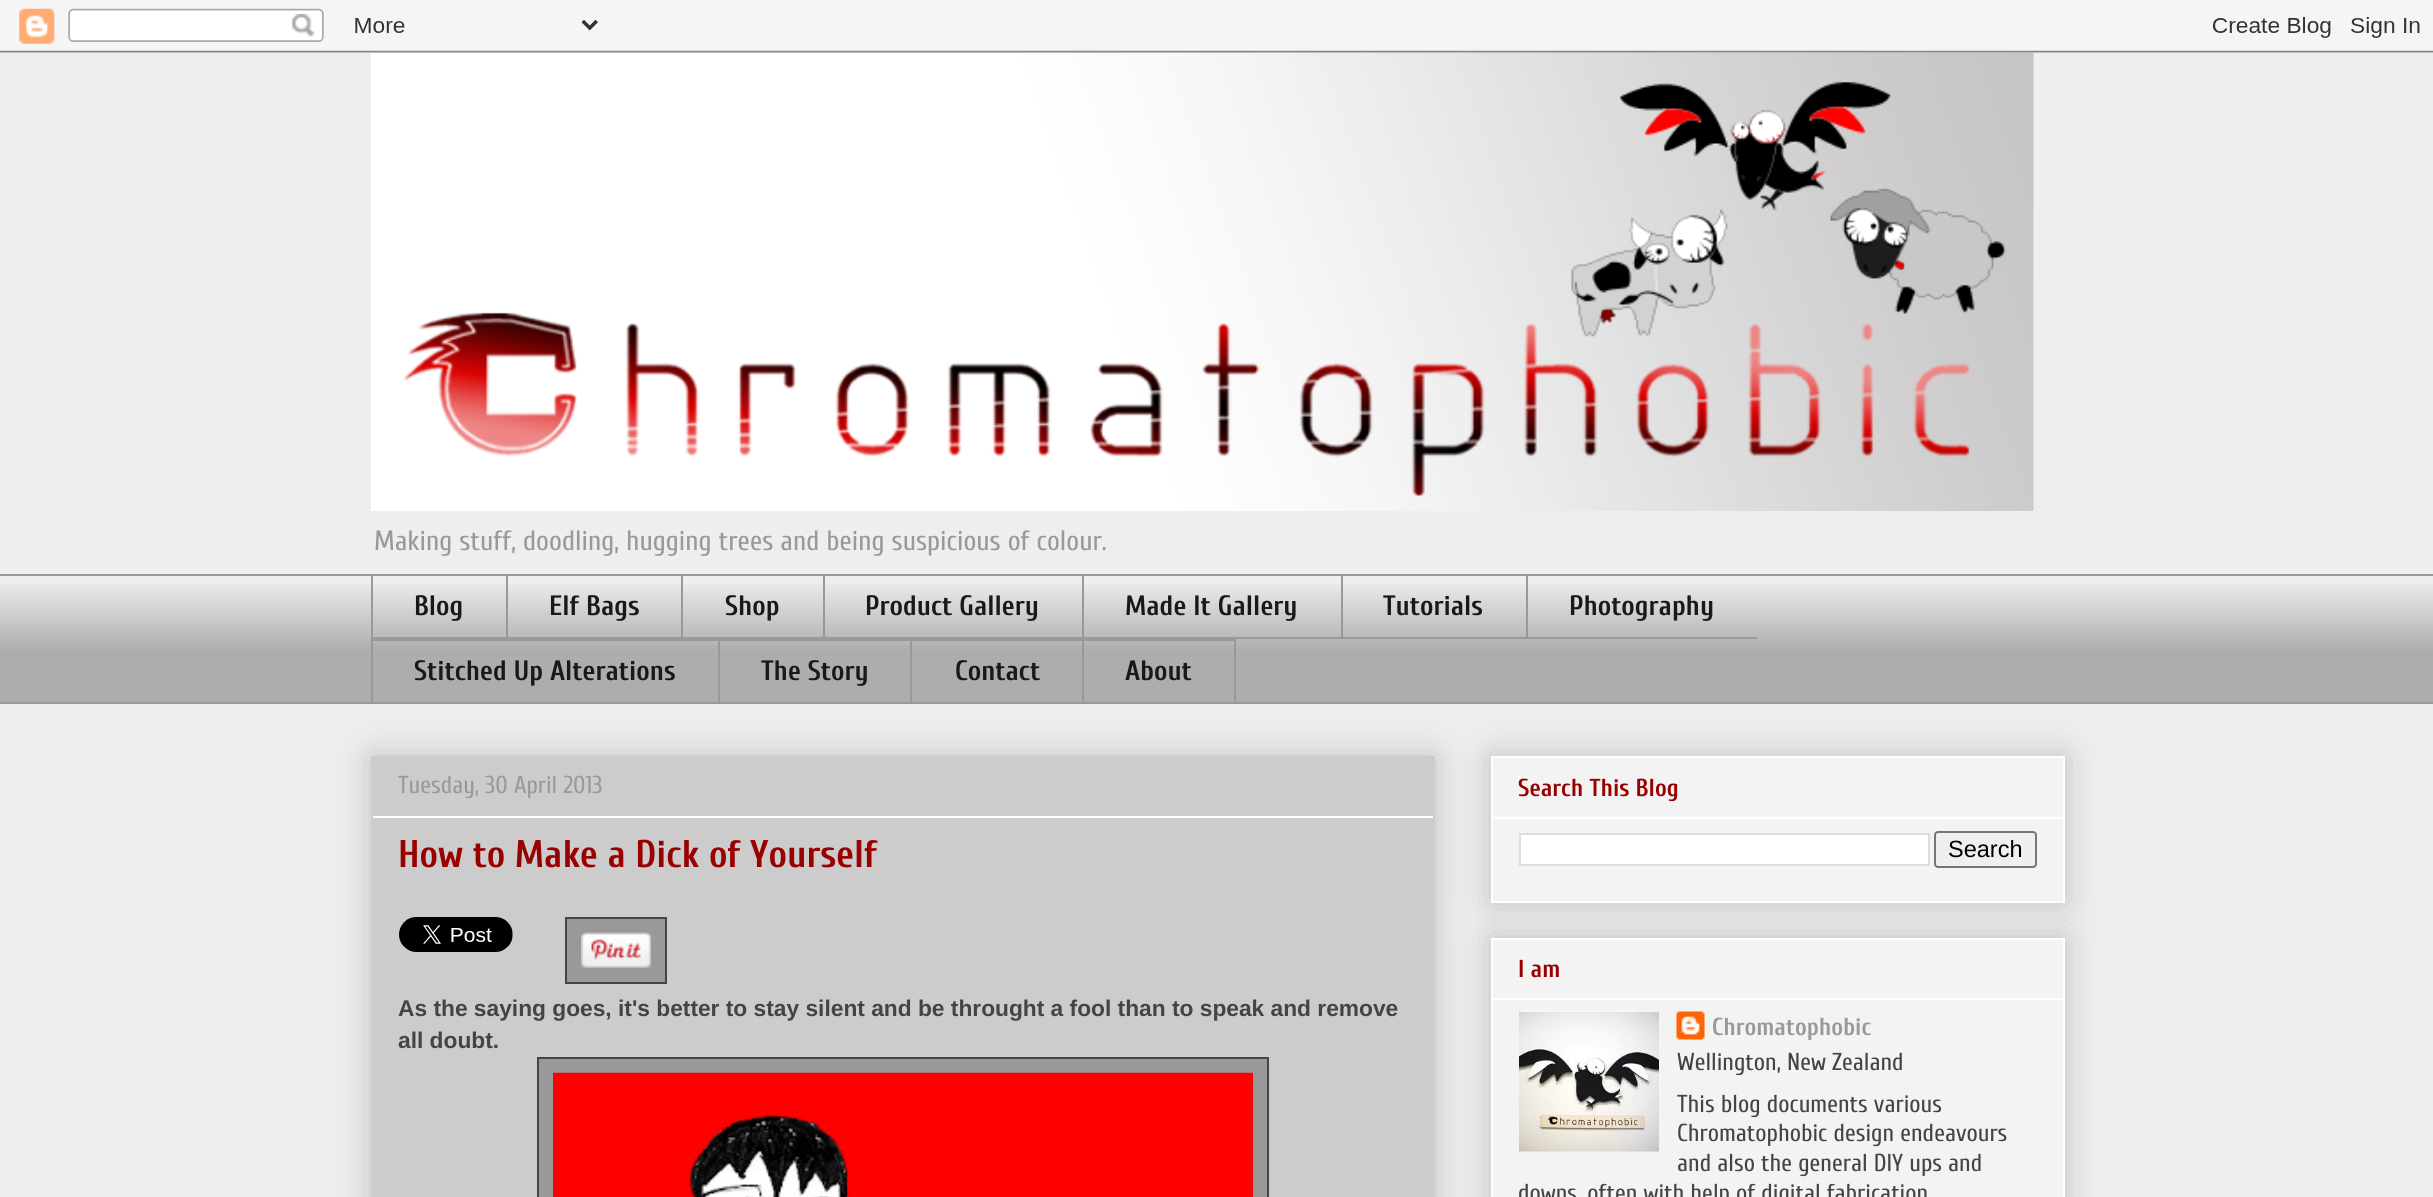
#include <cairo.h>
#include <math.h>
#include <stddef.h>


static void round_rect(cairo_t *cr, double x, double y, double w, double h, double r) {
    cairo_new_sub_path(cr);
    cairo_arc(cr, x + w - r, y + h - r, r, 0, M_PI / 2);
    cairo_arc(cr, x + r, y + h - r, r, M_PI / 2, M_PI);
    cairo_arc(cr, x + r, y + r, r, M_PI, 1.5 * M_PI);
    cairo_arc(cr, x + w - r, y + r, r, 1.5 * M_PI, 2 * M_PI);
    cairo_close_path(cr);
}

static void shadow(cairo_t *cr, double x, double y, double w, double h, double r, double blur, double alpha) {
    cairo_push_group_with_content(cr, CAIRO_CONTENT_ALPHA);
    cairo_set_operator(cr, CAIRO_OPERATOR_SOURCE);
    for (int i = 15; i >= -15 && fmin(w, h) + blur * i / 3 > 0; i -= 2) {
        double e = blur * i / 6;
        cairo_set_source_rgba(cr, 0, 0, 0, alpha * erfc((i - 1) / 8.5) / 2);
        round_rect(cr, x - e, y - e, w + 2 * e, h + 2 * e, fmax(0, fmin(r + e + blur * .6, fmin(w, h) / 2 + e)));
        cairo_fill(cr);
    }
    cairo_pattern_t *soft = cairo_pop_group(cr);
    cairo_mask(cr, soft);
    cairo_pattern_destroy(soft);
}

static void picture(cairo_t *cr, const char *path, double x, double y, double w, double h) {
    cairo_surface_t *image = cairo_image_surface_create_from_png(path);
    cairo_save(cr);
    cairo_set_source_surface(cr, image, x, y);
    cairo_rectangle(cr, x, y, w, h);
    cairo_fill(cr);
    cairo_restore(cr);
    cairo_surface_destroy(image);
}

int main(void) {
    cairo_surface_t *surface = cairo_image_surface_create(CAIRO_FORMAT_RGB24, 2433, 1197);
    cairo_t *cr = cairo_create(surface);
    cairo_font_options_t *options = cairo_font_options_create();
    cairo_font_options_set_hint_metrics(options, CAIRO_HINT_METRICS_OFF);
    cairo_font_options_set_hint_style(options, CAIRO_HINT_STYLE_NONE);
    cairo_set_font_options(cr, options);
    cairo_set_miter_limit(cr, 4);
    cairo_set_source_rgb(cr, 0.933, 0.933, 0.933);
    cairo_paint(cr);
    picture(cr, "img2.png", 371, 52, 1663, 459);
    picture(cr, "img1.png", 0, 0, 2433, 53);
    cairo_select_font_face(cr, "Cuprum", CAIRO_FONT_SLANT_NORMAL, CAIRO_FONT_WEIGHT_NORMAL);
    cairo_set_font_size(cr, 28);
    cairo_set_source_rgb(cr, 0.6, 0.6, 0.6);
    cairo_move_to(cr, 374, 550);
    cairo_show_text(cr, "Making stuff, doodling, hugging trees and being suspicious of colour.");
    picture(cr, "img3.png", 0, 584, 2433, 118);
    cairo_rectangle(cr, 0, 574, 2433, 2);
    cairo_fill(cr);
    cairo_rectangle(cr, 371, 637, 1386, 2);
    cairo_fill(cr);
    cairo_rectangle(cr, 371, 574, 2, 65);
    cairo_fill(cr);
    cairo_select_font_face(cr, "Cuprum", CAIRO_FONT_SLANT_NORMAL, CAIRO_FONT_WEIGHT_BOLD);
    cairo_set_source_rgb(cr, 0.098, 0.098, 0.098);
    cairo_move_to(cr, 414, 615);
    cairo_show_text(cr, "Blog");
    cairo_set_source_rgb(cr, 0.6, 0.6, 0.6);
    cairo_rectangle(cr, 506, 574, 2, 65);
    cairo_fill(cr);
    cairo_set_source_rgb(cr, 0.098, 0.098, 0.098);
    cairo_move_to(cr, 549, 615);
    cairo_show_text(cr, "Elf Bags");
    cairo_set_source_rgb(cr, 0.6, 0.6, 0.6);
    cairo_rectangle(cr, 681, 574, 2, 65);
    cairo_fill(cr);
    cairo_set_source_rgb(cr, 0.098, 0.098, 0.098);
    cairo_move_to(cr, 725, 615);
    cairo_show_text(cr, "Shop");
    cairo_set_source_rgb(cr, 0.6, 0.6, 0.6);
    cairo_rectangle(cr, 823, 574, 2, 65);
    cairo_fill(cr);
    cairo_set_source_rgb(cr, 0.098, 0.098, 0.098);
    cairo_move_to(cr, 865, 615);
    cairo_show_text(cr, "Product Gallery");
    cairo_set_source_rgb(cr, 0.6, 0.6, 0.6);
    cairo_rectangle(cr, 1082, 574, 2, 65);
    cairo_fill(cr);
    cairo_set_source_rgb(cr, 0.098, 0.098, 0.098);
    cairo_move_to(cr, 1125, 615);
    cairo_show_text(cr, "Made It Gallery");
    cairo_set_source_rgb(cr, 0.6, 0.6, 0.6);
    cairo_rectangle(cr, 1341, 574, 2, 65);
    cairo_fill(cr);
    cairo_set_source_rgb(cr, 0.098, 0.098, 0.098);
    cairo_move_to(cr, 1383, 615);
    cairo_show_text(cr, "Tutorials");
    cairo_set_source_rgb(cr, 0.6, 0.6, 0.6);
    cairo_rectangle(cr, 1526, 574, 2, 65);
    cairo_fill(cr);
    cairo_set_source_rgb(cr, 0.098, 0.098, 0.098);
    cairo_move_to(cr, 1569, 615);
    cairo_show_text(cr, "Photography");
    cairo_set_source_rgb(cr, 0.6, 0.6, 0.6);
    cairo_rectangle(cr, 371, 639, 711, 2);
    cairo_fill(cr);
    cairo_rectangle(cr, 371, 639, 2, 65);
    cairo_fill(cr);
    cairo_set_source_rgb(cr, 0.098, 0.098, 0.098);
    cairo_move_to(cr, 414, 680);
    cairo_show_text(cr, "Stitched Up Alterations");
    cairo_set_source_rgb(cr, 0.6, 0.6, 0.6);
    cairo_rectangle(cr, 718, 639, 2, 65);
    cairo_fill(cr);
    cairo_set_source_rgb(cr, 0.098, 0.098, 0.098);
    cairo_move_to(cr, 761, 680);
    cairo_show_text(cr, "The Story");
    cairo_set_source_rgb(cr, 0.6, 0.6, 0.6);
    cairo_rectangle(cr, 910, 639, 2, 65);
    cairo_fill(cr);
    cairo_set_source_rgb(cr, 0.098, 0.098, 0.098);
    cairo_move_to(cr, 955, 680);
    cairo_show_text(cr, "Contact");
    cairo_rectangle(cr, 1083, 640, 152, 63);
    cairo_set_source_rgb(cr, 0.6, 0.6, 0.6);
    cairo_stroke(cr);
    cairo_set_source_rgb(cr, 0.098, 0.098, 0.098);
    cairo_move_to(cr, 1125, 680);
    cairo_show_text(cr, "About");
    cairo_set_source_rgb(cr, 0.6, 0.6, 0.6);
    cairo_rectangle(cr, 0, 702, 2433, 2);
    cairo_fill(cr);
    cairo_set_source_rgb(cr, 0, 0, 0);
    shadow(cr, 371, 756, 1064, 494, 0, 17.5, 0.2);
    cairo_set_source_rgb(cr, 0.8, 0.8, 0.8);
    cairo_rectangle(cr, 371, 756, 1064, 441);
    cairo_fill(cr);
    cairo_select_font_face(cr, "Cuprum", CAIRO_FONT_SLANT_NORMAL, CAIRO_FONT_WEIGHT_NORMAL);
    cairo_set_font_size(cr, 24.5);
    cairo_set_source_rgb(cr, 0.6, 0.6, 0.6);
    cairo_move_to(cr, 398, 793);
    cairo_show_text(cr, "Tuesday, 30 April 2013");
    cairo_set_source_rgb(cr, 1, 1, 1);
    cairo_rectangle(cr, 373, 816, 1060, 2);
    cairo_fill(cr);
    cairo_select_font_face(cr, "Cuprum", CAIRO_FONT_SLANT_NORMAL, CAIRO_FONT_WEIGHT_BOLD);
    cairo_set_font_size(cr, 38.5);
    cairo_set_source_rgb(cr, 0.6, 0, 0);
    cairo_move_to(cr, 398, 867);
    cairo_show_text(cr, "How to Make a Dick of Yourself");
    picture(cr, "img4.png", 399, 917, 114, 35);
    cairo_set_source_rgb(cr, 0.6, 0.6, 0.6);
    cairo_rectangle(cr, 566, 918, 100, 65);
    cairo_fill_preserve(cr);
    cairo_set_source_rgb(cr, 0.267, 0.267, 0.267);
    cairo_stroke(cr);
    picture(cr, "img5.png", 581, 932, 70, 36);
    cairo_select_font_face(cr, "Liberation Sans", CAIRO_FONT_SLANT_NORMAL, CAIRO_FONT_WEIGHT_BOLD);
    cairo_set_font_size(cr, 22.75);
    cairo_move_to(cr, 398, 1016);
    cairo_show_text(cr, "As the saying goes, it's better to stay silent and be throught a fool than to speak and remove");
    cairo_move_to(cr, 398, 1048);
    cairo_show_text(cr, "all doubt.");
    cairo_set_source_rgb(cr, 0.6, 0.6, 0.6);
    cairo_rectangle(cr, 538, 1058, 730, 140);
    cairo_fill_preserve(cr);
    cairo_set_source_rgb(cr, 0.267, 0.267, 0.267);
    cairo_stroke(cr);
    picture(cr, "img6.png", 553, 1072, 700, 125);
    cairo_set_source_rgb(cr, 0, 0, 0);
    shadow(cr, 1491, 756, 574, 147, 0, 17.5, 0.2);
    cairo_set_source_rgb(cr, 0.953, 0.953, 0.953);
    cairo_rectangle(cr, 1492, 757, 572, 145);
    cairo_fill_preserve(cr);
    cairo_set_source_rgb(cr, 1, 1, 1);
    cairo_stroke(cr);
    cairo_select_font_face(cr, "Cuprum", CAIRO_FONT_SLANT_NORMAL, CAIRO_FONT_WEIGHT_BOLD);
    cairo_set_font_size(cr, 24.5);
    cairo_set_source_rgb(cr, 0.6, 0, 0);
    cairo_move_to(cr, 1518, 796);
    cairo_show_text(cr, "Search This Blog");
    cairo_set_source_rgb(cr, 1, 1, 1);
    cairo_rectangle(cr, 1493, 817, 570, 2);
    cairo_fill(cr);
    cairo_rectangle(cr, 1520, 834, 409, 31);
    cairo_fill_preserve(cr);
    cairo_set_source_rgb(cr, 0.867, 0.867, 0.867);
    cairo_stroke(cr);
    cairo_set_source_rgb(cr, 0.937, 0.937, 0.937);
    round_rect(cr, 1935, 832, 101, 35, 3);
    cairo_fill_preserve(cr);
    cairo_set_source_rgb(cr, 0.463, 0.463, 0.463);
    cairo_stroke(cr);
    cairo_select_font_face(cr, "Liberation Sans", CAIRO_FONT_SLANT_NORMAL, CAIRO_FONT_WEIGHT_NORMAL);
    cairo_set_font_size(cr, 23.5);
    cairo_set_source_rgb(cr, 0, 0, 0);
    cairo_move_to(cr, 1948, 857);
    cairo_show_text(cr, "Search");
    cairo_set_source_rgb(cr, 0, 0, 0);
    shadow(cr, 1491, 938, 574, 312, 0, 17.5, 0.2);
    cairo_set_source_rgb(cr, 0.953, 0.953, 0.953);
    cairo_rectangle(cr, 1492, 939, 572, 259);
    cairo_fill_preserve(cr);
    cairo_set_source_rgb(cr, 1, 1, 1);
    cairo_stroke(cr);
    cairo_select_font_face(cr, "Cuprum", CAIRO_FONT_SLANT_NORMAL, CAIRO_FONT_WEIGHT_BOLD);
    cairo_set_font_size(cr, 24.5);
    cairo_set_source_rgb(cr, 0.6, 0, 0);
    cairo_move_to(cr, 1518, 977);
    cairo_show_text(cr, "I am");
    cairo_set_source_rgb(cr, 1, 1, 1);
    cairo_rectangle(cr, 1493, 998, 570, 2);
    cairo_fill(cr);
    picture(cr, "img7.png", 1519, 1011, 140, 141);
    picture(cr, "img8.png", 1676, 1011, 29, 29);
    cairo_set_source_rgb(cr, 0.6, 0.6, 0.6);
    cairo_move_to(cr, 1712, 1035);
    cairo_show_text(cr, "Chromatophobic");
    cairo_select_font_face(cr, "Cuprum", CAIRO_FONT_SLANT_NORMAL, CAIRO_FONT_WEIGHT_NORMAL);
    cairo_set_source_rgb(cr, 0.267, 0.267, 0.267);
    cairo_move_to(cr, 1677, 1070);
    cairo_show_text(cr, "Wellington, New Zealand");
    cairo_move_to(cr, 1677, 1112);
    cairo_show_text(cr, "This blog documents various");
    cairo_move_to(cr, 1677, 1141);
    cairo_show_text(cr, "Chromatophobic design endeavours");
    cairo_move_to(cr, 1677, 1171);
    cairo_show_text(cr, "and also the general DIY ups and");
    cairo_move_to(cr, 1518, 1201);
    cairo_show_text(cr, "downs, often with help of digital fabrication");
    cairo_surface_write_to_png(surface, "page.png");
    cairo_font_options_destroy(options);
    cairo_destroy(cr);
    cairo_surface_destroy(surface);
    return 0;
}
